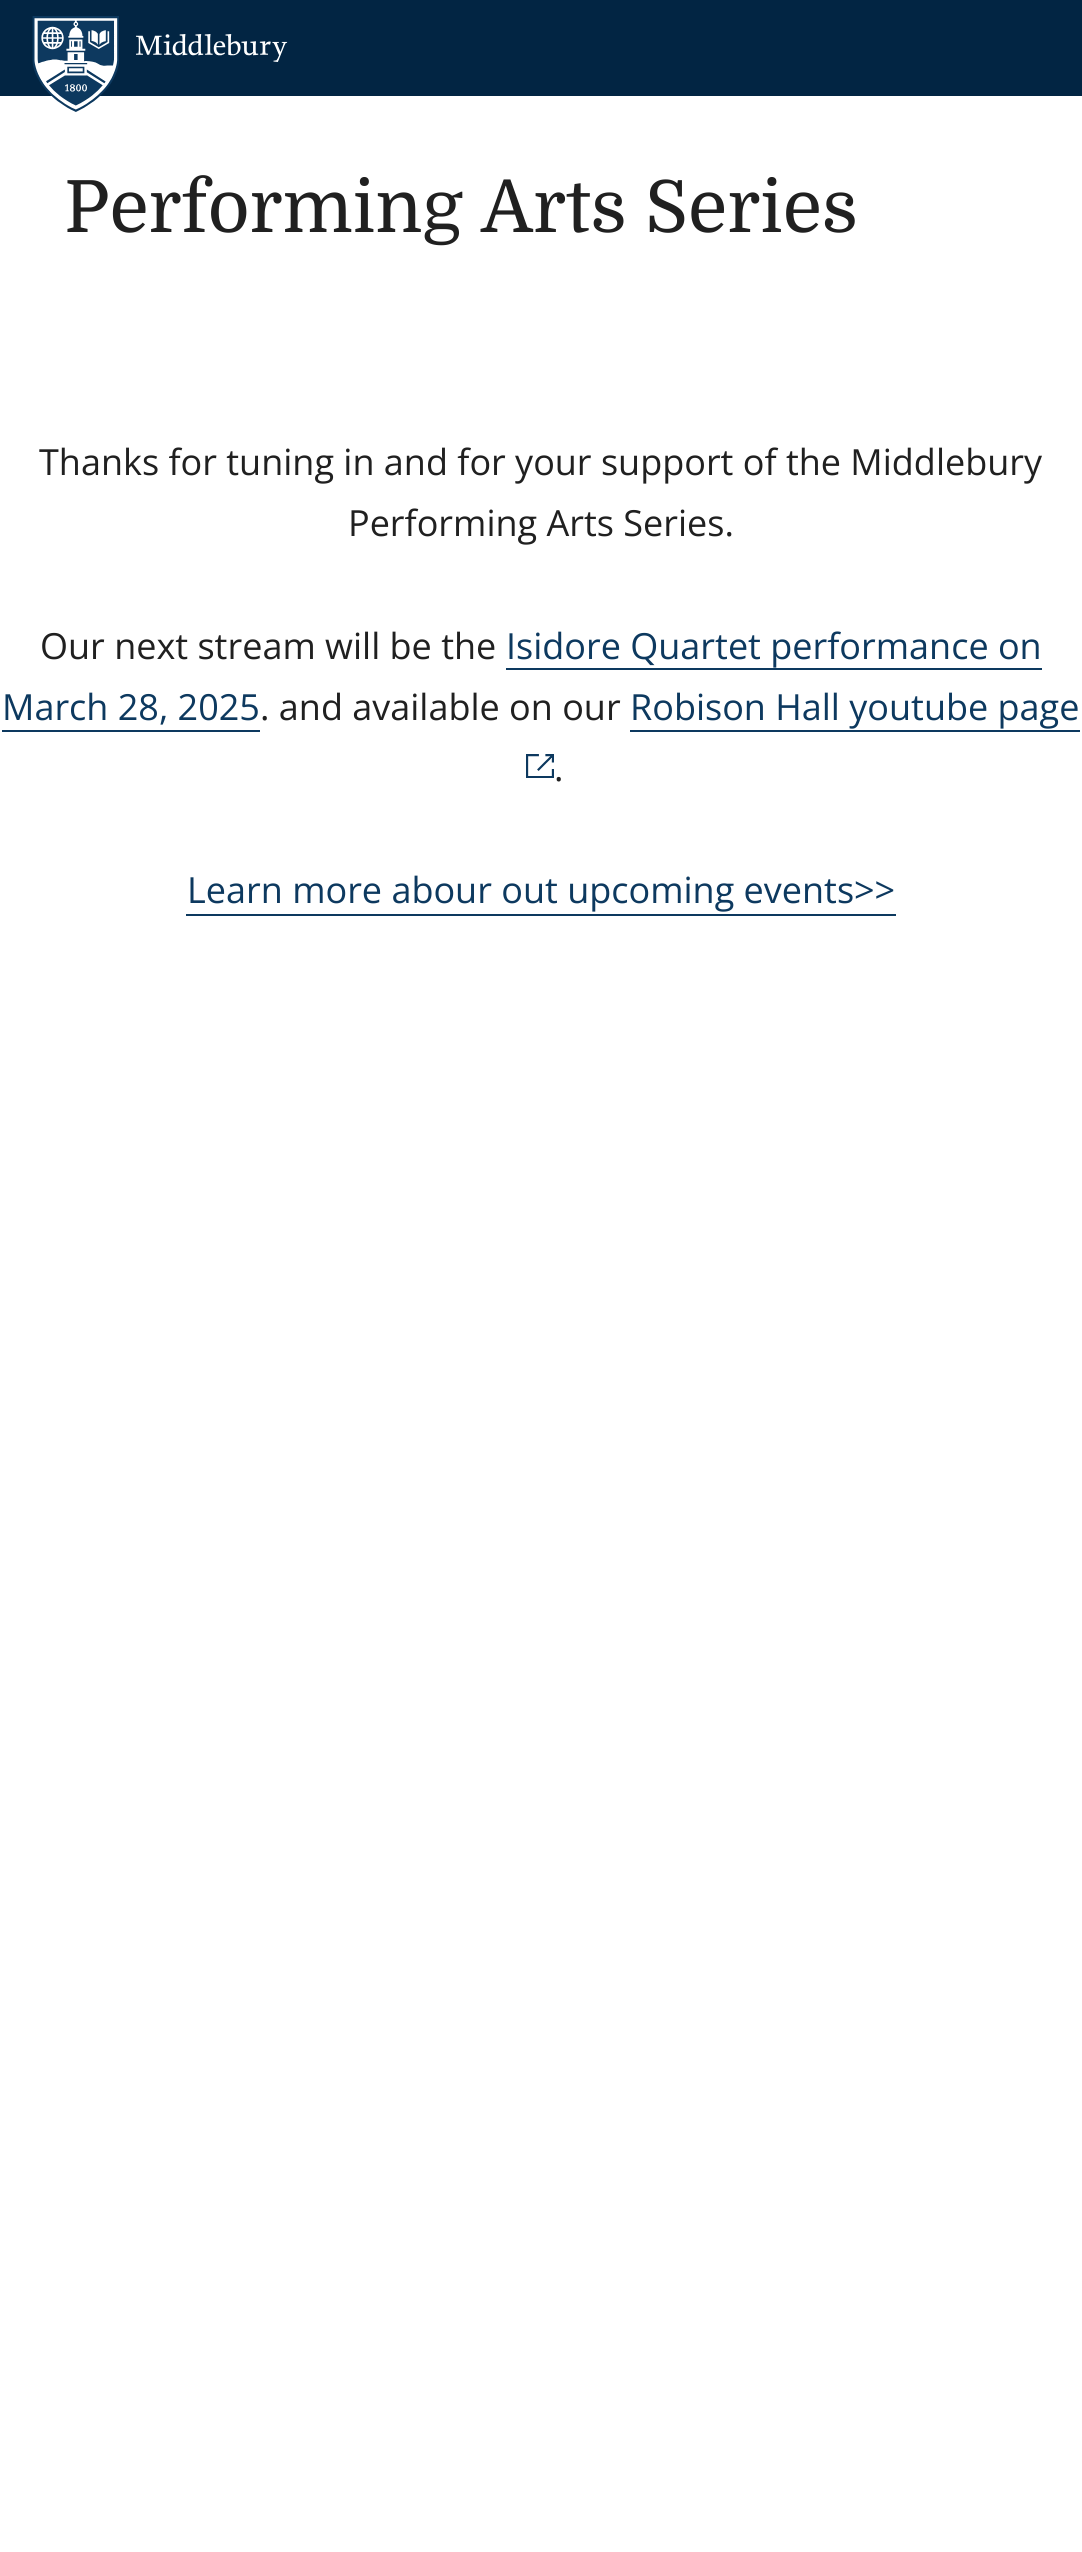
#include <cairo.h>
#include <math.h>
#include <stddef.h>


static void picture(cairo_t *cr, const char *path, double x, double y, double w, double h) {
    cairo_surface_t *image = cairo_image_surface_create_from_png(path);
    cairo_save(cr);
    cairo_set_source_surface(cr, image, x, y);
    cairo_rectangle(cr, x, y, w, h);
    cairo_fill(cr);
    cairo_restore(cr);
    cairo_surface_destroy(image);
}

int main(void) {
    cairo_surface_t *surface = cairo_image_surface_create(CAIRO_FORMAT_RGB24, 1082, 2552);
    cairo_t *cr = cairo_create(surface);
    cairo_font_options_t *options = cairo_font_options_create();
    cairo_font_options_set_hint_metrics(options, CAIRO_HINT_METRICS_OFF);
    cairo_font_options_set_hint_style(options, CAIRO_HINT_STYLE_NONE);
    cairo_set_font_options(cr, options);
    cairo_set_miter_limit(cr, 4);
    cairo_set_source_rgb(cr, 1, 1, 1);
    cairo_paint(cr);
    cairo_set_source_rgb(cr, 0.008, 0.145, 0.263);
    cairo_rectangle(cr, 0, 0, 1082, 96);
    cairo_fill(cr);
    picture(cr, "img1.png", 32, 16, 87, 96);
    picture(cr, "img2.png", 136, 34, 152, 28);
    cairo_select_font_face(cr, "Domine", CAIRO_FONT_SLANT_NORMAL, CAIRO_FONT_WEIGHT_NORMAL);
    cairo_set_font_size(cr, 72);
    cairo_set_source_rgb(cr, 0.125, 0.125, 0.125);
    cairo_move_to(cr, 64, 232);
    cairo_show_text(cr, "Performing Arts Series");
    cairo_select_font_face(cr, "Open Sans", CAIRO_FONT_SLANT_NORMAL, CAIRO_FONT_WEIGHT_NORMAL);
    cairo_set_font_size(cr, 36);
    cairo_move_to(cr, 39, 475);
    cairo_show_text(cr, "Thanks for tuning in and for your support of the Middlebury");
    cairo_move_to(cr, 348, 536);
    cairo_show_text(cr, "Performing Arts Series.");
    cairo_move_to(cr, 40, 659);
    cairo_show_text(cr, "Our next stream will be the");
    cairo_set_source_rgb(cr, 0.051, 0.224, 0.373);
    cairo_move_to(cr, 506, 659);
    cairo_show_text(cr, "Isidore Quartet performance on");
    cairo_rectangle(cr, 506, 668, 536, 2);
    cairo_fill(cr);
    cairo_move_to(cr, 2, 720);
    cairo_show_text(cr, "March 28, 2025");
    cairo_rectangle(cr, 2, 730, 258, 2);
    cairo_fill(cr);
    cairo_set_source_rgb(cr, 0.125, 0.125, 0.125);
    cairo_move_to(cr, 260, 720);
    cairo_show_text(cr, ". and available on our");
    cairo_set_source_rgb(cr, 0.051, 0.224, 0.373);
    cairo_rectangle(cr, 630, 730, 450, 2);
    cairo_fill(cr);
    cairo_rectangle(cr, 526, 776, 28, 2);
    cairo_fill(cr);
    cairo_move_to(cr, 630, 720);
    cairo_show_text(cr, "Robison Hall youtube page");
    picture(cr, "img3.png", 526, 754, 28, 22);
    cairo_set_source_rgb(cr, 0.125, 0.125, 0.125);
    cairo_move_to(cr, 554, 781);
    cairo_show_text(cr, ".");
    cairo_set_source_rgb(cr, 0.051, 0.224, 0.373);
    cairo_move_to(cr, 187, 903);
    cairo_show_text(cr, "Learn more abour out upcoming events>>");
    cairo_rectangle(cr, 186, 914, 710, 2);
    cairo_fill(cr);
    cairo_surface_write_to_png(surface, "page.png");
    cairo_font_options_destroy(options);
    cairo_destroy(cr);
    cairo_surface_destroy(surface);
    return 0;
}
